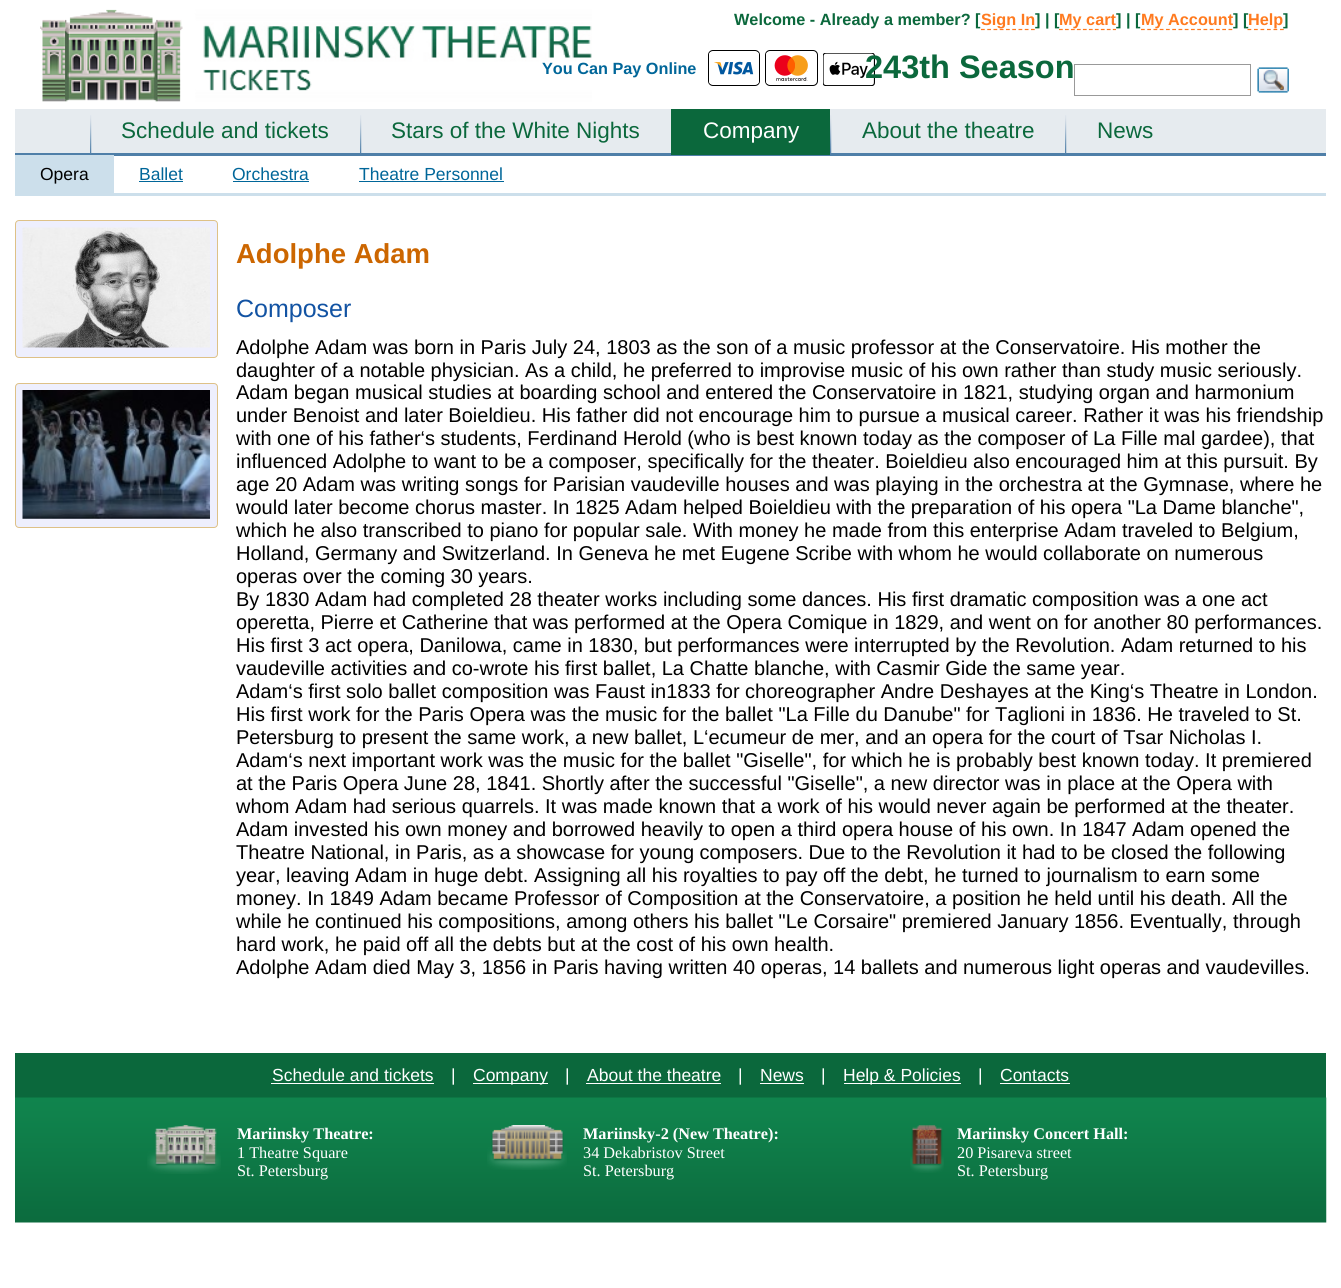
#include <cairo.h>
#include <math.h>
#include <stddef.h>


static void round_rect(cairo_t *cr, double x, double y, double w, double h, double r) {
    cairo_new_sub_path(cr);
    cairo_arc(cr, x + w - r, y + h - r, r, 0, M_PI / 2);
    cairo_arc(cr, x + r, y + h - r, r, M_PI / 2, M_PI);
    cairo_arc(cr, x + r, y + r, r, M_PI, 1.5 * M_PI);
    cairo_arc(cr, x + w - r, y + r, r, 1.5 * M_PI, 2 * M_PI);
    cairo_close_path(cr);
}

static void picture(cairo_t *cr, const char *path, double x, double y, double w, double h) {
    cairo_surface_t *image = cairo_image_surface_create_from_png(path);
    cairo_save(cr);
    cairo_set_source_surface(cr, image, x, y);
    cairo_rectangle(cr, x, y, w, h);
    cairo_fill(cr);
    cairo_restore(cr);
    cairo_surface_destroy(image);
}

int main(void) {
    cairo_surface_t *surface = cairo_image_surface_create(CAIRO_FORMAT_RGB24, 1341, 1288);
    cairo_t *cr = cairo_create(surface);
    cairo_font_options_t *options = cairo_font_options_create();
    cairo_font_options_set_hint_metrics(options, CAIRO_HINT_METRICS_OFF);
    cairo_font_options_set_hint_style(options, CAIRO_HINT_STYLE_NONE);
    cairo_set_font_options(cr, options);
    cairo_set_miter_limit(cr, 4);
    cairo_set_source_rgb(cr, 1, 1, 1);
    cairo_paint(cr);
    picture(cr, "img1.png", 40, 9, 552, 93);
    cairo_select_font_face(cr, "Liberation Sans", CAIRO_FONT_SLANT_NORMAL, CAIRO_FONT_WEIGHT_BOLD);
    cairo_set_font_size(cr, 16.25);
    cairo_set_source_rgb(cr, 0.043, 0.408, 0.235);
    cairo_move_to(cr, 734, 25);
    cairo_show_text(cr, "Welcome - Already a member? [");
    cairo_new_path(cr);
    cairo_move_to(cr, 981, 29.5);
    cairo_line_to(cr, 1035, 29.5);
    cairo_set_source_rgb(cr, 1, 0.478, 0.122);
    cairo_set_line_width(cr, 1.2);
    cairo_set_dash(cr, (double[]){3.75, 2.5}, 2, 0);
    cairo_stroke(cr);
    cairo_move_to(cr, 981, 25);
    cairo_show_text(cr, "Sign In");
    cairo_set_source_rgb(cr, 0.043, 0.408, 0.235);
    cairo_move_to(cr, 1035, 25);
    cairo_show_text(cr, "] | [");
    cairo_new_path(cr);
    cairo_move_to(cr, 1059, 29.5);
    cairo_line_to(cr, 1116, 29.5);
    cairo_set_source_rgb(cr, 1, 0.478, 0.122);
    cairo_set_dash(cr, (double[]){3.75, 2.23}, 2, 0);
    cairo_stroke(cr);
    cairo_move_to(cr, 1059, 25);
    cairo_show_text(cr, "My cart");
    cairo_set_source_rgb(cr, 0.043, 0.408, 0.235);
    cairo_move_to(cr, 1116, 25);
    cairo_show_text(cr, "] | [");
    cairo_new_path(cr);
    cairo_move_to(cr, 1141, 29.5);
    cairo_line_to(cr, 1232.5, 29.5);
    cairo_set_source_rgb(cr, 1, 0.478, 0.122);
    cairo_set_dash(cr, (double[]){3.75, 2.5}, 2, 0);
    cairo_stroke(cr);
    cairo_move_to(cr, 1141, 25);
    cairo_show_text(cr, "My Account");
    cairo_set_source_rgb(cr, 0.043, 0.408, 0.235);
    cairo_move_to(cr, 1233, 25);
    cairo_show_text(cr, "] [");
    cairo_new_path(cr);
    cairo_move_to(cr, 1247.5, 29.5);
    cairo_line_to(cr, 1284, 29.5);
    cairo_set_source_rgb(cr, 1, 0.478, 0.122);
    cairo_set_dash(cr, (double[]){3.75, 2.75}, 2, 0);
    cairo_stroke(cr);
    cairo_move_to(cr, 1248, 25);
    cairo_show_text(cr, "Help");
    cairo_set_source_rgb(cr, 0.043, 0.408, 0.235);
    cairo_move_to(cr, 1283, 25);
    cairo_show_text(cr, "]");
    cairo_set_source_rgb(cr, 0, 0.4, 0.6);
    cairo_move_to(cr, 542, 74);
    cairo_show_text(cr, "You Can Pay Online");
    round_rect(cr, 708.5, 50.5, 51, 35, 4.5);
    cairo_set_source_rgb(cr, 0, 0, 0);
    cairo_set_line_width(cr, 1);
    cairo_set_dash(cr, NULL, 0, 0);
    cairo_stroke(cr);
    round_rect(cr, 765.5, 50.5, 52, 35, 4.5);
    cairo_stroke(cr);
    picture(cr, "img2.png", 709, 52, 50, 32);
    picture(cr, "img3.png", 766, 52, 42, 32);
    picture(cr, "img4.png", 823, 53, 52, 33);
    cairo_set_font_size(cr, 32.5);
    cairo_set_source_rgb(cr, 0.043, 0.408, 0.235);
    cairo_move_to(cr, 865, 78);
    cairo_show_text(cr, "243th Season");
    cairo_rectangle(cr, 1074.5, 64.5, 176, 31);
    cairo_set_source_rgb(cr, 0.6, 0.6, 0.6);
    cairo_stroke(cr);
    picture(cr, "img5.png", 1257, 67, 32, 26);
    cairo_set_source_rgb(cr, 0.902, 0.918, 0.937);
    cairo_rectangle(cr, 15, 109, 1311, 44);
    cairo_fill(cr);
    cairo_set_source_rgb(cr, 0.31, 0.498, 0.659);
    cairo_rectangle(cr, 15, 153, 1311, 3);
    cairo_fill(cr);
    picture(cr, "img6.png", 90, 115, 2, 39);
    cairo_select_font_face(cr, "Liberation Sans", CAIRO_FONT_SLANT_NORMAL, CAIRO_FONT_WEIGHT_NORMAL);
    cairo_set_font_size(cr, 22.5);
    cairo_set_source_rgb(cr, 0.043, 0.408, 0.235);
    cairo_move_to(cr, 121, 138);
    cairo_show_text(cr, "Schedule and tickets");
    picture(cr, "img6.png", 360, 115, 2, 39);
    cairo_move_to(cr, 391, 138);
    cairo_show_text(cr, "Stars of the White Nights");
    cairo_rectangle(cr, 671, 109, 159, 46);
    cairo_fill(cr);
    cairo_set_source_rgb(cr, 1, 1, 1);
    cairo_move_to(cr, 703, 138);
    cairo_show_text(cr, "Company");
    picture(cr, "img6.png", 830, 115, 2, 39);
    cairo_set_source_rgb(cr, 0.043, 0.408, 0.235);
    cairo_move_to(cr, 862, 138);
    cairo_show_text(cr, "About the theatre");
    picture(cr, "img6.png", 1065, 115, 2, 39);
    cairo_move_to(cr, 1097, 138);
    cairo_show_text(cr, "News");
    cairo_set_source_rgb(cr, 0.8, 0.875, 0.918);
    cairo_rectangle(cr, 15, 193, 1311, 3);
    cairo_fill(cr);
    cairo_rectangle(cr, 15, 155, 99, 38);
    cairo_fill(cr);
    cairo_set_font_size(cr, 17.5);
    cairo_set_source_rgb(cr, 0, 0, 0);
    cairo_move_to(cr, 40, 180);
    cairo_show_text(cr, "Opera");
    cairo_set_source_rgb(cr, 0, 0.4, 0.6);
    cairo_move_to(cr, 139, 180);
    cairo_show_text(cr, "Ballet");
    cairo_rectangle(cr, 139, 181, 44, 1);
    cairo_fill(cr);
    cairo_move_to(cr, 232, 180);
    cairo_show_text(cr, "Orchestra");
    cairo_rectangle(cr, 233, 181, 76, 1);
    cairo_fill(cr);
    cairo_move_to(cr, 359, 180);
    cairo_show_text(cr, "Theatre Personnel");
    cairo_rectangle(cr, 359, 181, 145, 1);
    cairo_fill(cr);
    cairo_set_source_rgb(cr, 0.933, 0.937, 0.992);
    round_rect(cr, 15.5, 220.5, 202, 137, 3.5);
    cairo_fill_preserve(cr);
    cairo_set_source_rgb(cr, 0.871, 0.757, 0.529);
    cairo_stroke(cr);
    picture(cr, "img7.png", 22, 227, 188, 121);
    cairo_set_source_rgb(cr, 0.933, 0.937, 0.992);
    round_rect(cr, 15.5, 383.5, 202, 144, 3.5);
    cairo_fill_preserve(cr);
    cairo_set_source_rgb(cr, 0.871, 0.757, 0.529);
    cairo_stroke(cr);
    picture(cr, "img8.png", 22, 390, 188, 129);
    cairo_select_font_face(cr, "Liberation Sans", CAIRO_FONT_SLANT_NORMAL, CAIRO_FONT_WEIGHT_BOLD);
    cairo_set_font_size(cr, 27.5);
    cairo_set_source_rgb(cr, 0.8, 0.4, 0);
    cairo_move_to(cr, 236, 263);
    cairo_show_text(cr, "Adolphe Adam");
    cairo_select_font_face(cr, "Liberation Sans", CAIRO_FONT_SLANT_NORMAL, CAIRO_FONT_WEIGHT_NORMAL);
    cairo_set_font_size(cr, 25);
    cairo_set_source_rgb(cr, 0.071, 0.325, 0.639);
    cairo_move_to(cr, 236, 317);
    cairo_show_text(cr, "Composer");
    cairo_set_font_size(cr, 20);
    cairo_set_source_rgb(cr, 0, 0, 0);
    cairo_move_to(cr, 236, 354);
    cairo_show_text(cr, "Adolphe Adam was born in Paris July 24, 1803 as the son of a music professor at the Conservatoire. His mother the");
    cairo_move_to(cr, 236, 377);
    cairo_show_text(cr, "daughter of a notable physician. As a child, he preferred to improvise music of his own rather than study music seriously.");
    cairo_move_to(cr, 236, 399);
    cairo_show_text(cr, "Adam began musical studies at boarding school and entered the Conservatoire in 1821, studying organ and harmonium");
    cairo_move_to(cr, 236, 422);
    cairo_show_text(cr, "under Benoist and later Boieldieu. His father did not encourage him to pursue a musical career. Rather it was his friendship");
    cairo_move_to(cr, 236, 445);
    cairo_show_text(cr, "with one of his father‘s students, Ferdinand Herold (who is best known today as the composer of La Fille mal gardee), that");
    cairo_move_to(cr, 236, 468);
    cairo_show_text(cr, "influenced Adolphe to want to be a composer, specifically for the theater. Boieldieu also encouraged him at this pursuit. By");
    cairo_move_to(cr, 236, 491);
    cairo_show_text(cr, "age 20 Adam was writing songs for Parisian vaudeville houses and was playing in the orchestra at the Gymnase, where he");
    cairo_move_to(cr, 236, 514);
    cairo_show_text(cr, "would later become chorus master. In 1825 Adam helped Boieldieu with the preparation of his opera \"La Dame blanche\",");
    cairo_move_to(cr, 236, 537);
    cairo_show_text(cr, "which he also transcribed to piano for popular sale. With money he made from this enterprise Adam traveled to Belgium,");
    cairo_move_to(cr, 236, 560);
    cairo_show_text(cr, "Holland, Germany and Switzerland. In Geneva he met Eugene Scribe with whom he would collaborate on numerous");
    cairo_move_to(cr, 236, 583);
    cairo_show_text(cr, "operas over the coming 30 years.");
    cairo_move_to(cr, 236, 606);
    cairo_show_text(cr, "By 1830 Adam had completed 28 theater works including some dances. His first dramatic composition was a one act");
    cairo_move_to(cr, 236, 629);
    cairo_show_text(cr, "operetta, Pierre et Catherine that was performed at the Opera Comique in 1829, and went on for another 80 performances.");
    cairo_move_to(cr, 236, 652);
    cairo_show_text(cr, "His first 3 act opera, Danilowa, came in 1830, but performances were interrupted by the Revolution. Adam returned to his");
    cairo_move_to(cr, 236, 675);
    cairo_show_text(cr, "vaudeville activities and co-wrote his first ballet, La Chatte blanche, with Casmir Gide the same year.");
    cairo_move_to(cr, 236, 698);
    cairo_show_text(cr, "Adam‘s first solo ballet composition was Faust in1833 for choreographer Andre Deshayes at the King‘s Theatre in London.");
    cairo_move_to(cr, 236, 721);
    cairo_show_text(cr, "His first work for the Paris Opera was the music for the ballet \"La Fille du Danube\" for Taglioni in 1836. He traveled to St.");
    cairo_move_to(cr, 236, 744);
    cairo_show_text(cr, "Petersburg to present the same work, a new ballet, L‘ecumeur de mer, and an opera for the court of Tsar Nicholas I.");
    cairo_move_to(cr, 236, 767);
    cairo_show_text(cr, "Adam‘s next important work was the music for the ballet \"Giselle\", for which he is probably best known today. It premiered");
    cairo_move_to(cr, 236, 790);
    cairo_show_text(cr, "at the Paris Opera June 28, 1841. Shortly after the successful \"Giselle\", a new director was in place at the Opera with");
    cairo_move_to(cr, 236, 813);
    cairo_show_text(cr, "whom Adam had serious quarrels. It was made known that a work of his would never again be performed at the theater.");
    cairo_move_to(cr, 236, 836);
    cairo_show_text(cr, "Adam invested his own money and borrowed heavily to open a third opera house of his own. In 1847 Adam opened the");
    cairo_move_to(cr, 236, 859);
    cairo_show_text(cr, "Theatre National, in Paris, as a showcase for young composers. Due to the Revolution it had to be closed the following");
    cairo_move_to(cr, 236, 882);
    cairo_show_text(cr, "year, leaving Adam in huge debt. Assigning all his royalties to pay off the debt, he turned to journalism to earn some");
    cairo_move_to(cr, 236, 905);
    cairo_show_text(cr, "money. In 1849 Adam became Professor of Composition at the Conservatoire, a position he held until his death. All the");
    cairo_move_to(cr, 236, 928);
    cairo_show_text(cr, "while he continued his compositions, among others his ballet \"Le Corsaire\" premiered January 1856. Eventually, through");
    cairo_move_to(cr, 236, 951);
    cairo_show_text(cr, "hard work, he paid off all the debts but at the cost of his own health.");
    cairo_move_to(cr, 236, 974);
    cairo_show_text(cr, "Adolphe Adam died May 3, 1856 in Paris having written 40 operas, 14 ballets and numerous light operas and vaudevilles.");
    cairo_set_source_rgb(cr, 0.043, 0.408, 0.235);
    cairo_rectangle(cr, 15, 1053, 1311, 45);
    cairo_fill(cr);
    cairo_set_font_size(cr, 17.5);
    cairo_set_source_rgb(cr, 1, 1, 1);
    cairo_move_to(cr, 272, 1081);
    cairo_show_text(cr, "Schedule and tickets");
    cairo_rectangle(cr, 271, 1083, 163, 1);
    cairo_fill(cr);
    cairo_move_to(cr, 451, 1081);
    cairo_show_text(cr, "|");
    cairo_rectangle(cr, 473, 1083, 75, 1);
    cairo_fill(cr);
    cairo_move_to(cr, 473, 1081);
    cairo_show_text(cr, "Company");
    cairo_move_to(cr, 565, 1081);
    cairo_show_text(cr, "|");
    cairo_move_to(cr, 587, 1081);
    cairo_show_text(cr, "About the theatre");
    cairo_rectangle(cr, 586, 1083, 135, 1);
    cairo_fill(cr);
    cairo_move_to(cr, 738, 1081);
    cairo_show_text(cr, "|");
    cairo_move_to(cr, 760, 1081);
    cairo_show_text(cr, "News");
    cairo_rectangle(cr, 760, 1083, 44, 1);
    cairo_fill(cr);
    cairo_move_to(cr, 821, 1081);
    cairo_show_text(cr, "|");
    cairo_rectangle(cr, 844, 1083, 117, 1);
    cairo_fill(cr);
    cairo_move_to(cr, 843, 1081);
    cairo_show_text(cr, "Help & Policies");
    cairo_move_to(cr, 978, 1081);
    cairo_show_text(cr, "|");
    cairo_move_to(cr, 1000, 1081);
    cairo_show_text(cr, "Contacts");
    cairo_rectangle(cr, 1000, 1083, 70, 1);
    cairo_fill(cr);
    picture(cr, "img9.png", 15, 1097, 1312, 126);
    picture(cr, "img10.png", 147, 1125, 74, 49);
    cairo_select_font_face(cr, "Liberation Serif", CAIRO_FONT_SLANT_NORMAL, CAIRO_FONT_WEIGHT_BOLD);
    cairo_set_font_size(cr, 16.25);
    cairo_move_to(cr, 237, 1139);
    cairo_show_text(cr, "Mariinsky Theatre:");
    cairo_select_font_face(cr, "Liberation Serif", CAIRO_FONT_SLANT_NORMAL, CAIRO_FONT_WEIGHT_NORMAL);
    cairo_move_to(cr, 237, 1158);
    cairo_show_text(cr, "1 Theatre Square");
    cairo_move_to(cr, 237, 1176);
    cairo_show_text(cr, "St. Petersburg");
    picture(cr, "img11.png", 487, 1125, 80, 45);
    cairo_select_font_face(cr, "Liberation Serif", CAIRO_FONT_SLANT_NORMAL, CAIRO_FONT_WEIGHT_BOLD);
    cairo_move_to(cr, 583, 1139);
    cairo_show_text(cr, "Mariinsky-2 (New Theatre):");
    cairo_select_font_face(cr, "Liberation Serif", CAIRO_FONT_SLANT_NORMAL, CAIRO_FONT_WEIGHT_NORMAL);
    cairo_move_to(cr, 583, 1158);
    cairo_show_text(cr, "34 Dekabristov Street");
    cairo_move_to(cr, 583, 1176);
    cairo_show_text(cr, "St. Petersburg");
    picture(cr, "img12.png", 910, 1125, 34, 48);
    cairo_select_font_face(cr, "Liberation Serif", CAIRO_FONT_SLANT_NORMAL, CAIRO_FONT_WEIGHT_BOLD);
    cairo_move_to(cr, 957, 1139);
    cairo_show_text(cr, "Mariinsky Concert Hall:");
    cairo_select_font_face(cr, "Liberation Serif", CAIRO_FONT_SLANT_NORMAL, CAIRO_FONT_WEIGHT_NORMAL);
    cairo_move_to(cr, 957, 1158);
    cairo_show_text(cr, "20 Pisareva street");
    cairo_move_to(cr, 957, 1176);
    cairo_show_text(cr, "St. Petersburg");
    cairo_surface_write_to_png(surface, "page.png");
    cairo_font_options_destroy(options);
    cairo_destroy(cr);
    cairo_surface_destroy(surface);
    return 0;
}
